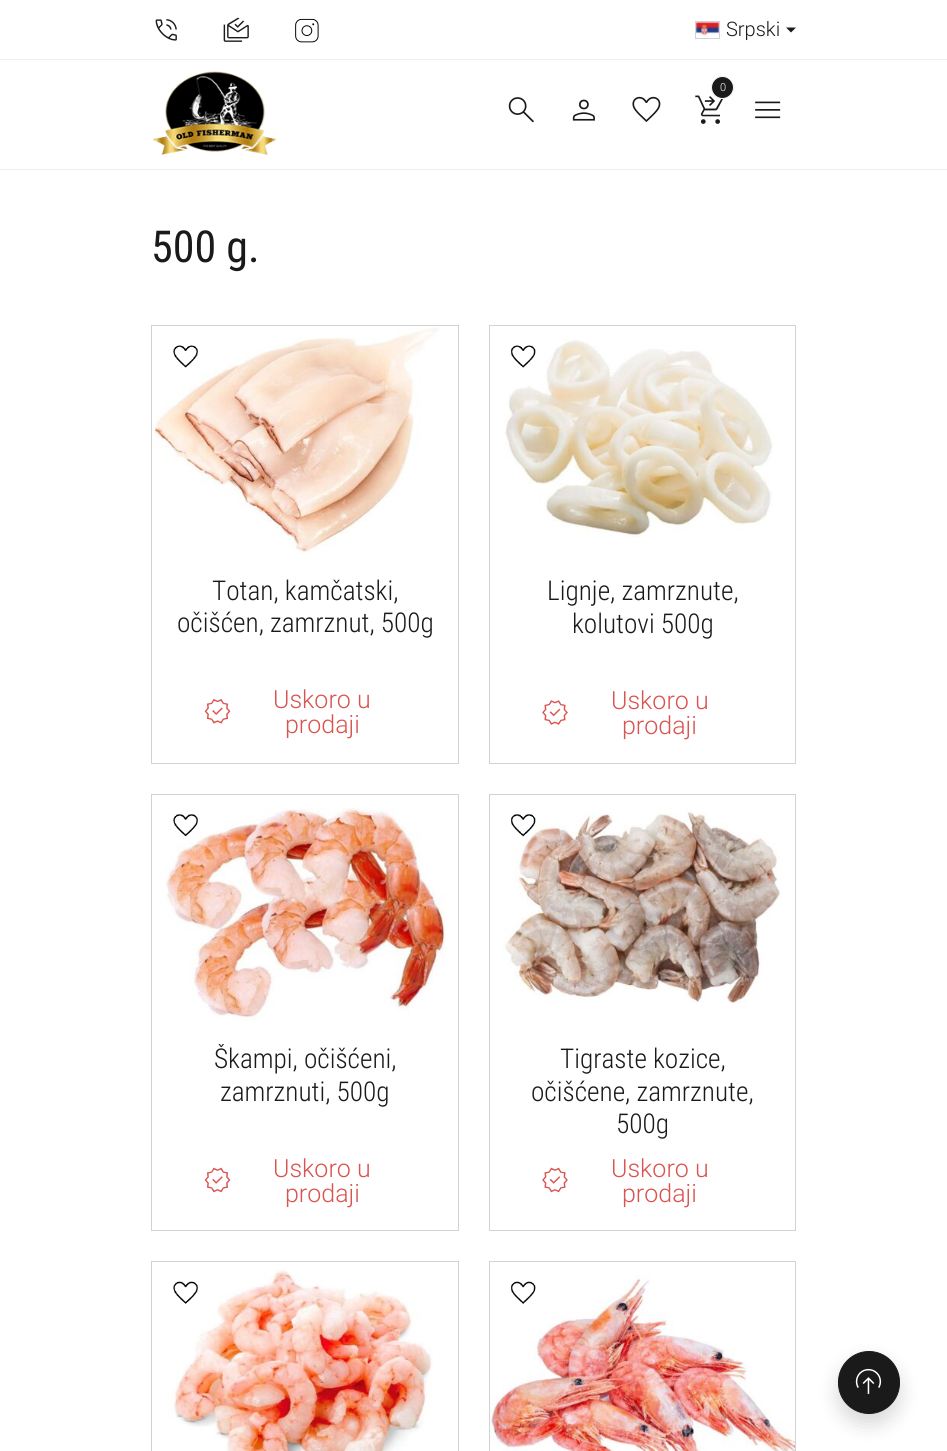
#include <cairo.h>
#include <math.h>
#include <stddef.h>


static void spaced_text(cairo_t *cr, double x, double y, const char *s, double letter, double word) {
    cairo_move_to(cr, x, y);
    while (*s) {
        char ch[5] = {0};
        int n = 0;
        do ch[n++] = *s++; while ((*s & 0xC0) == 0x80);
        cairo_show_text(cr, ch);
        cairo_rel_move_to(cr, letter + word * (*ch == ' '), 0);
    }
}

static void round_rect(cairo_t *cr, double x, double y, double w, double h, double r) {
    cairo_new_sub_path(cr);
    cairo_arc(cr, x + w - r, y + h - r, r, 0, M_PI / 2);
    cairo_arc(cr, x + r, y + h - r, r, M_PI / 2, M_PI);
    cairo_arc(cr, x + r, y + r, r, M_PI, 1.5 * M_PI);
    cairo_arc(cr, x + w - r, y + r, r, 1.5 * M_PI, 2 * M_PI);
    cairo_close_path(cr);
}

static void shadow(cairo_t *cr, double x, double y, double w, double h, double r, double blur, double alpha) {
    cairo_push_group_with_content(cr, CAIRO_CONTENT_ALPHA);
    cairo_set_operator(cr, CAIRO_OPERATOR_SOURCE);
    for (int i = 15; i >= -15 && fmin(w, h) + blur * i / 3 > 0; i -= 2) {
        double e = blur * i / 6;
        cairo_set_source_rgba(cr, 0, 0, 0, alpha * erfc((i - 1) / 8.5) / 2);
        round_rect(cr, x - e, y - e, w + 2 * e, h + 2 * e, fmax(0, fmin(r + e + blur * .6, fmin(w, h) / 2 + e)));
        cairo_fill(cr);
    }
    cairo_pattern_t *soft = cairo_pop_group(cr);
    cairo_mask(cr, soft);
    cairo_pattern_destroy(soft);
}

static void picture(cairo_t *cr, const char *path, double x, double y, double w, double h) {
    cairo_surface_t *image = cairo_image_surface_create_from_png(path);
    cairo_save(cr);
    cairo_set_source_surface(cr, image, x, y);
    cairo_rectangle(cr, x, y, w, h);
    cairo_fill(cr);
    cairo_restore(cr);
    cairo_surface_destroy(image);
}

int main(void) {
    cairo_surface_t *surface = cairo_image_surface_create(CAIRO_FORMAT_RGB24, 947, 1451);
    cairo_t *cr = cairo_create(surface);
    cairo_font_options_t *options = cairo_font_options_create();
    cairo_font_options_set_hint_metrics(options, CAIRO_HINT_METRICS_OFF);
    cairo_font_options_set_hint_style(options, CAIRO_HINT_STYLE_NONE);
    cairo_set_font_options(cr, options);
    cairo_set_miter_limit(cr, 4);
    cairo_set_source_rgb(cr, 1, 1, 1);
    cairo_paint(cr);
    cairo_set_source_rgb(cr, 0.925, 0.933, 0.937);
    cairo_rectangle(cr, 0, 59, 947, 1);
    cairo_fill(cr);
    picture(cr, "img1.png", 155, 19, 22, 22);
    picture(cr, "img2.png", 223, 17, 26, 25);
    picture(cr, "img3.png", 295, 18, 24, 25);
    cairo_rectangle(cr, 695.5, 21.5, 24, 17);
    cairo_set_source_rgb(cr, 0.824, 0.824, 0.824);
    cairo_set_line_width(cr, 1);
    cairo_stroke(cr);
    picture(cr, "img4.png", 696, 22, 23, 14);
    cairo_select_font_face(cr, "Roboto Light", CAIRO_FONT_SLANT_NORMAL, CAIRO_FONT_WEIGHT_NORMAL);
    cairo_set_font_size(cr, 20);
    cairo_set_source_rgb(cr, 0.102, 0.102, 0.102);
    cairo_move_to(cr, 726, 36);
    cairo_show_text(cr, "Srpski");
    cairo_new_path(cr);
    cairo_move_to(cr, 786, 27.5);
    cairo_line_to(cr, 796, 27.5);
    cairo_line_to(cr, 791, 32.5);
    cairo_close_path(cr);
    cairo_fill(cr);
    cairo_set_source_rgb(cr, 0.925, 0.933, 0.937);
    cairo_rectangle(cr, 0, 169, 947, 1);
    cairo_fill(cr);
    picture(cr, "img5.png", 153, 71, 124, 84);
    picture(cr, "img6.png", 695, 95, 29, 29);
    cairo_set_source_rgb(cr, 0.102, 0.102, 0.102);
    cairo_arc(cr, 722.5, 87.5, 11, 0, 2 * M_PI);
    cairo_fill_preserve(cr);
    cairo_set_source_rgb(cr, 0.969, 0.969, 0.976);
    cairo_stroke(cr);
    cairo_set_font_size(cr, 11);
    cairo_set_source_rgb(cr, 1, 1, 1);
    spaced_text(cr, 720, 91, "0", -1, 0);
    picture(cr, "img7.png", 508, 97, 26, 26);
    picture(cr, "img8.png", 572, 99, 23, 22);
    picture(cr, "img9.png", 632, 96, 29, 26);
    picture(cr, "img10.png", 755, 101, 26, 18);
    cairo_select_font_face(cr, "Roboto Condensed", CAIRO_FONT_SLANT_NORMAL, CAIRO_FONT_WEIGHT_NORMAL);
    cairo_set_font_size(cr, 44);
    cairo_set_source_rgb(cr, 0.102, 0.102, 0.102);
    cairo_move_to(cr, 151, 262);
    cairo_show_text(cr, "500 g.");
    cairo_rectangle(cr, 151.5, 325.5, 307, 438);
    cairo_set_source_rgb(cr, 0.824, 0.824, 0.824);
    cairo_stroke(cr);
    picture(cr, "img11.png", 152, 327, 287, 227);
    cairo_select_font_face(cr, "Roboto Condensed Light", CAIRO_FONT_SLANT_NORMAL, CAIRO_FONT_WEIGHT_NORMAL);
    cairo_set_font_size(cr, 27.25);
    cairo_set_source_rgb(cr, 0.102, 0.102, 0.102);
    cairo_move_to(cr, 212, 600);
    cairo_show_text(cr, "Totan, kamčatski,");
    cairo_move_to(cr, 177, 632);
    cairo_show_text(cr, "očišćen, zamrznut, 500g");
    picture(cr, "img12.png", 173, 345, 25, 23);
    picture(cr, "img13.png", 204, 699, 27, 25);
    cairo_select_font_face(cr, "Roboto Light", CAIRO_FONT_SLANT_NORMAL, CAIRO_FONT_WEIGHT_NORMAL);
    cairo_set_font_size(cr, 25);
    cairo_set_source_rgb(cr, 0.851, 0.325, 0.31);
    cairo_move_to(cr, 273, 708);
    cairo_show_text(cr, "Uskoro u");
    cairo_move_to(cr, 285, 733);
    cairo_show_text(cr, "prodaji");
    cairo_rectangle(cr, 489.5, 325.5, 306, 438);
    cairo_set_source_rgb(cr, 0.824, 0.824, 0.824);
    cairo_stroke(cr);
    picture(cr, "img14.png", 504, 339, 270, 199);
    cairo_select_font_face(cr, "Roboto Condensed Light", CAIRO_FONT_SLANT_NORMAL, CAIRO_FONT_WEIGHT_NORMAL);
    cairo_set_font_size(cr, 27.25);
    cairo_set_source_rgb(cr, 0.102, 0.102, 0.102);
    cairo_move_to(cr, 547, 600);
    cairo_show_text(cr, "Lignje, zamrznute,");
    cairo_move_to(cr, 572, 633);
    cairo_show_text(cr, "kolutovi 500g");
    picture(cr, "img15.png", 510, 345, 26, 23);
    picture(cr, "img16.png", 542, 700, 26, 25);
    cairo_select_font_face(cr, "Roboto Light", CAIRO_FONT_SLANT_NORMAL, CAIRO_FONT_WEIGHT_NORMAL);
    cairo_set_font_size(cr, 25);
    cairo_set_source_rgb(cr, 0.851, 0.325, 0.31);
    cairo_move_to(cr, 611, 709);
    cairo_show_text(cr, "Uskoro u");
    cairo_move_to(cr, 622, 734);
    cairo_show_text(cr, "prodaji");
    cairo_rectangle(cr, 151.5, 794.5, 307, 436);
    cairo_set_source_rgb(cr, 0.824, 0.824, 0.824);
    cairo_stroke(cr);
    picture(cr, "img17.png", 165, 807, 281, 214);
    cairo_save(cr);
    cairo_rectangle(cr, 173, 1044, 265, 97);
    cairo_clip(cr);
    cairo_select_font_face(cr, "Roboto Condensed Light", CAIRO_FONT_SLANT_NORMAL, CAIRO_FONT_WEIGHT_NORMAL);
    cairo_set_font_size(cr, 27.25);
    cairo_set_source_rgb(cr, 0.102, 0.102, 0.102);
    cairo_move_to(cr, 214, 1068);
    cairo_show_text(cr, "Škampi, očišćeni,");
    cairo_restore(cr);
    cairo_select_font_face(cr, "Roboto Condensed Light", CAIRO_FONT_SLANT_NORMAL, CAIRO_FONT_WEIGHT_NORMAL);
    cairo_set_font_size(cr, 27.25);
    cairo_set_source_rgb(cr, 0.102, 0.102, 0.102);
    cairo_move_to(cr, 220, 1101);
    cairo_show_text(cr, "zamrznuti, 500g");
    picture(cr, "img18.png", 173, 814, 25, 23);
    picture(cr, "img19.png", 204, 1167, 27, 26);
    cairo_select_font_face(cr, "Roboto Light", CAIRO_FONT_SLANT_NORMAL, CAIRO_FONT_WEIGHT_NORMAL);
    cairo_set_font_size(cr, 25);
    cairo_set_source_rgb(cr, 0.851, 0.325, 0.31);
    cairo_move_to(cr, 273, 1177);
    cairo_show_text(cr, "Uskoro u");
    cairo_move_to(cr, 285, 1202);
    cairo_show_text(cr, "prodaji");
    cairo_rectangle(cr, 489.5, 794.5, 306, 436);
    cairo_set_source_rgb(cr, 0.824, 0.824, 0.824);
    cairo_stroke(cr);
    picture(cr, "img20.png", 502, 808, 281, 195);
    cairo_select_font_face(cr, "Roboto Condensed Light", CAIRO_FONT_SLANT_NORMAL, CAIRO_FONT_WEIGHT_NORMAL);
    cairo_set_font_size(cr, 27.25);
    cairo_set_source_rgb(cr, 0.102, 0.102, 0.102);
    cairo_move_to(cr, 560, 1068);
    cairo_show_text(cr, "Tigraste kozice,");
    cairo_move_to(cr, 531, 1101);
    cairo_show_text(cr, "očišćene, zamrznute,");
    cairo_move_to(cr, 616, 1133);
    cairo_show_text(cr, "500g");
    picture(cr, "img21.png", 510, 814, 26, 23);
    picture(cr, "img22.png", 542, 1167, 26, 26);
    cairo_select_font_face(cr, "Roboto Light", CAIRO_FONT_SLANT_NORMAL, CAIRO_FONT_WEIGHT_NORMAL);
    cairo_set_font_size(cr, 25);
    cairo_set_source_rgb(cr, 0.851, 0.325, 0.31);
    cairo_move_to(cr, 611, 1177);
    cairo_show_text(cr, "Uskoro u");
    cairo_move_to(cr, 622, 1202);
    cairo_show_text(cr, "prodaji");
    cairo_rectangle(cr, 151.5, 1261.5, 307, 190);
    cairo_set_source_rgb(cr, 0.824, 0.824, 0.824);
    cairo_stroke(cr);
    picture(cr, "img23.png", 167, 1268, 266, 183);
    picture(cr, "img24.png", 173, 1281, 25, 23);
    cairo_rectangle(cr, 489.5, 1261.5, 306, 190);
    cairo_stroke(cr);
    picture(cr, "img25.png", 490, 1275, 305, 176);
    picture(cr, "img26.png", 510, 1281, 26, 23);
    cairo_set_source_rgb(cr, 0, 0, 0);
    shadow(cr, 838, 1361, 62, 63, 31, 10, 0.15);
    cairo_set_source_rgb(cr, 0.102, 0.102, 0.102);
    round_rect(cr, 838.5, 1351.5, 61, 62, 30.5);
    cairo_fill_preserve(cr);
    cairo_stroke(cr);
    picture(cr, "img27.png", 855, 1368, 27, 26);
    cairo_surface_write_to_png(surface, "page.png");
    cairo_font_options_destroy(options);
    cairo_destroy(cr);
    cairo_surface_destroy(surface);
    return 0;
}
